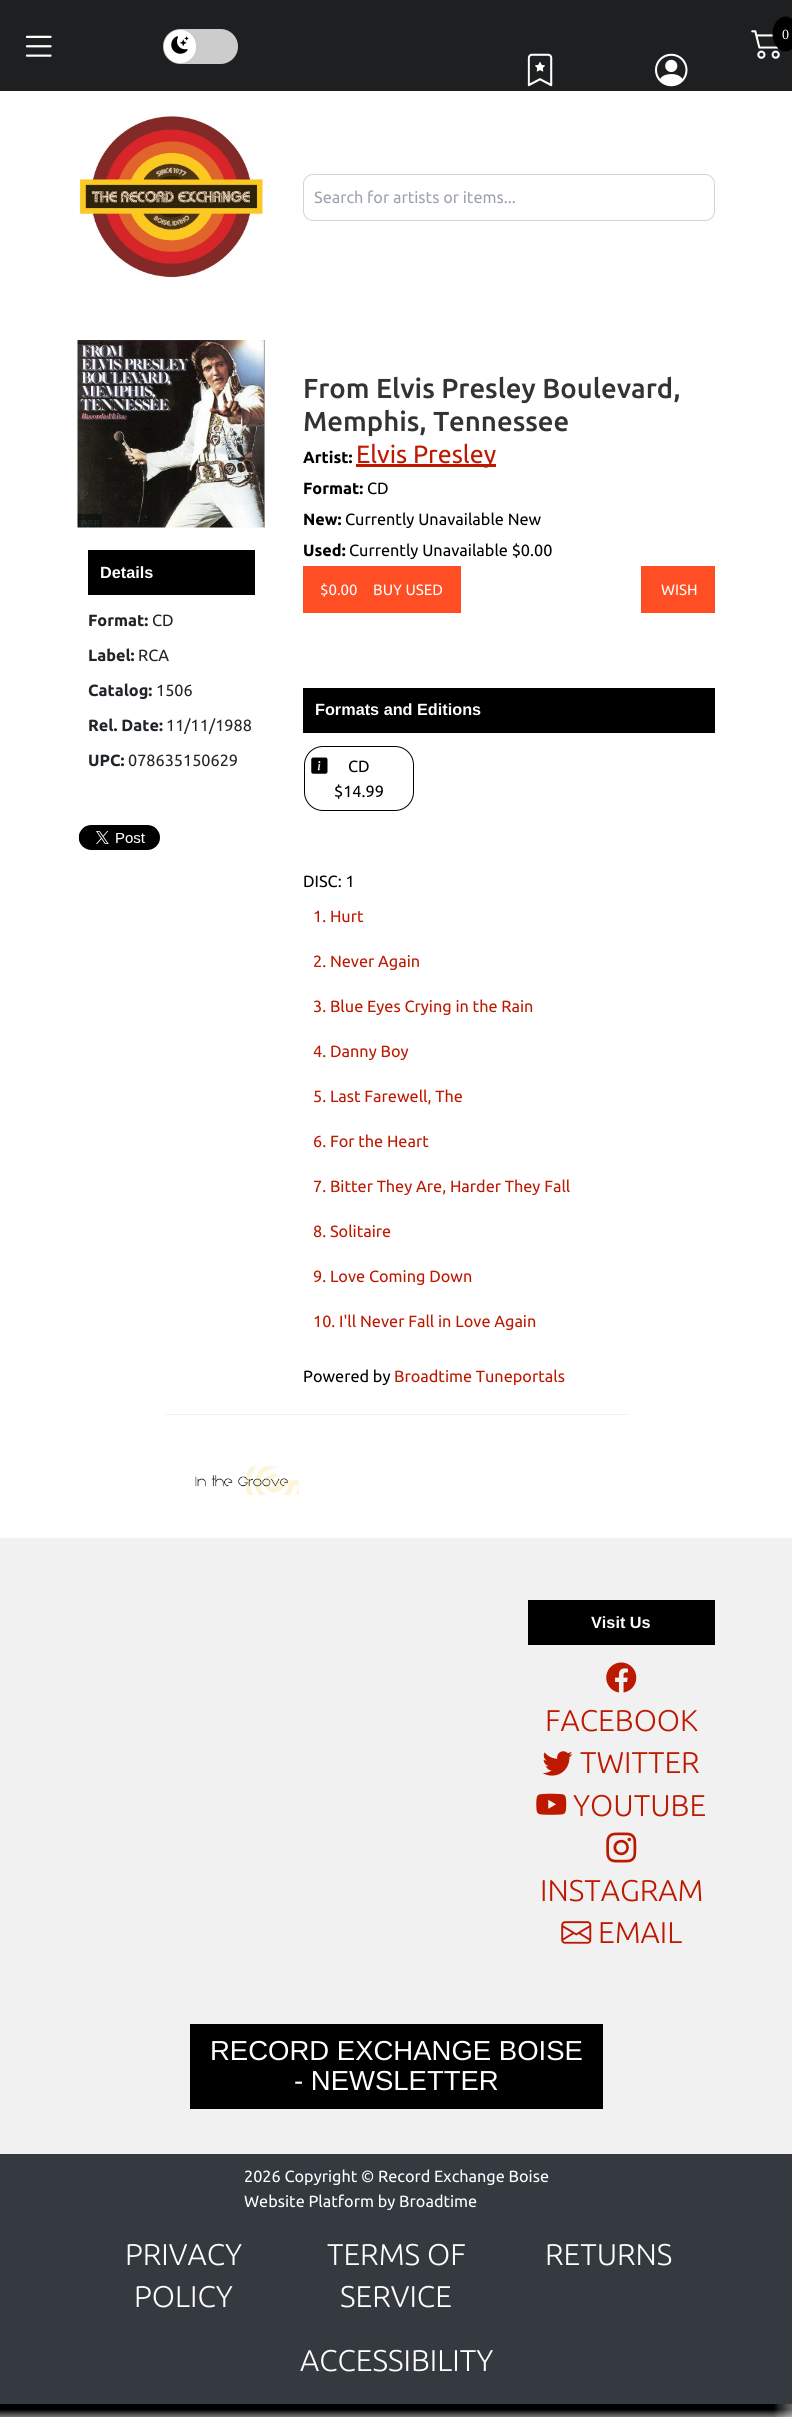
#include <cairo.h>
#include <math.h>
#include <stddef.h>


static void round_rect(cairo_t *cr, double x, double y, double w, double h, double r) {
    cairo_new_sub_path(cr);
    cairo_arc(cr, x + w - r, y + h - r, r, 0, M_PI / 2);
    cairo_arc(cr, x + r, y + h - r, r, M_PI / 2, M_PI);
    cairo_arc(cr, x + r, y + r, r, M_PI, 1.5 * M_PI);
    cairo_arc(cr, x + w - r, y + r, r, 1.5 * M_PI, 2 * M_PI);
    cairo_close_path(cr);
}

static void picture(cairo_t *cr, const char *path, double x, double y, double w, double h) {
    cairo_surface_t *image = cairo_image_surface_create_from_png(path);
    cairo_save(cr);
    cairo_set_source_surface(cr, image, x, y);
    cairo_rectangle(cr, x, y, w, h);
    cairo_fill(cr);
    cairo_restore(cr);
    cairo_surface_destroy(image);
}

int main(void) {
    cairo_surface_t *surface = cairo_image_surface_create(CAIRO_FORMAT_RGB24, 792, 2417);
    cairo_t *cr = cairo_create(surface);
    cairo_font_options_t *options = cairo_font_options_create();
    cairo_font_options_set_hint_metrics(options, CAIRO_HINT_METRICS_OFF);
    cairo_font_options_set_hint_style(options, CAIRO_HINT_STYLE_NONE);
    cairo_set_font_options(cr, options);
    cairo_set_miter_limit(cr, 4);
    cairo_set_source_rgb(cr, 1, 1, 1);
    cairo_paint(cr);
    picture(cr, "img1.png", 0, 2404, 792, 13);
    cairo_set_source_rgb(cr, 0.114, 0.122, 0.125);
    cairo_rectangle(cr, 0, 0, 792, 91);
    cairo_fill(cr);
    picture(cr, "img2.png", 25, 35, 27, 22);
    cairo_set_source_rgb(cr, 0.8, 0.8, 0.8);
    round_rect(cr, 163, 29, 75, 35, 17.5);
    cairo_fill(cr);
    cairo_set_source_rgb(cr, 1, 1, 1);
    round_rect(cr, 164, 30, 32, 33, 16);
    cairo_fill(cr);
    picture(cr, "img3.png", 171, 36, 18, 18);
    picture(cr, "img4.png", 751, 30, 29, 29);
    cairo_set_source_rgb(cr, 0, 0, 0);
    cairo_new_path(cr);
    cairo_move_to(cr, 785.5, 16.5);
    cairo_curve_to(cr, 792.5, 16.5, 798.5, 24.5, 798.5, 34);
    cairo_curve_to(cr, 798.5, 43.5, 792.5, 51.5, 785.5, 51.5);
    cairo_curve_to(cr, 778.5, 51.5, 772.5, 43.5, 772.5, 34);
    cairo_curve_to(cr, 772.5, 24.5, 778.5, 16.5, 785.5, 16.5);
    cairo_close_path(cr);
    cairo_fill(cr);
    cairo_select_font_face(cr, "Liberation Serif", CAIRO_FONT_SLANT_NORMAL, CAIRO_FONT_WEIGHT_NORMAL);
    cairo_set_font_size(cr, 14);
    cairo_set_source_rgb(cr, 1, 1, 1);
    cairo_move_to(cr, 782, 39);
    cairo_show_text(cr, "0");
    picture(cr, "img5.png", 527, 53, 26, 34);
    picture(cr, "img6.png", 655, 53, 33, 34);
    picture(cr, "img7.png", 79, 116, 184, 162);
    round_rect(cr, 303.5, 174.5, 411, 46, 9.5);
    cairo_set_source_rgb(cr, 0.82, 0.835, 0.859);
    cairo_set_line_width(cr, 1);
    cairo_stroke(cr);
    cairo_select_font_face(cr, "Ubuntu", CAIRO_FONT_SLANT_NORMAL, CAIRO_FONT_WEIGHT_NORMAL);
    cairo_set_font_size(cr, 16.25);
    cairo_set_source_rgb(cr, 0.612, 0.639, 0.686);
    cairo_move_to(cr, 314, 203);
    cairo_show_text(cr, "Search for artists or items...");
    picture(cr, "img8.png", 77, 340, 188, 188);
    cairo_set_source_rgb(cr, 0, 0, 0);
    cairo_rectangle(cr, 88, 550, 167, 45);
    cairo_fill(cr);
    cairo_select_font_face(cr, "Liberation Sans", CAIRO_FONT_SLANT_NORMAL, CAIRO_FONT_WEIGHT_BOLD);
    cairo_set_source_rgb(cr, 1, 1, 1);
    cairo_move_to(cr, 100, 578);
    cairo_show_text(cr, "Details");
    cairo_select_font_face(cr, "Ubuntu", CAIRO_FONT_SLANT_NORMAL, CAIRO_FONT_WEIGHT_BOLD);
    cairo_set_source_rgb(cr, 0.129, 0.145, 0.161);
    cairo_move_to(cr, 88, 626);
    cairo_show_text(cr, "Format:");
    cairo_select_font_face(cr, "Ubuntu", CAIRO_FONT_SLANT_NORMAL, CAIRO_FONT_WEIGHT_NORMAL);
    cairo_move_to(cr, 152, 626);
    cairo_show_text(cr, "CD");
    cairo_select_font_face(cr, "Ubuntu", CAIRO_FONT_SLANT_NORMAL, CAIRO_FONT_WEIGHT_BOLD);
    cairo_move_to(cr, 88, 661);
    cairo_show_text(cr, "Label:");
    cairo_select_font_face(cr, "Ubuntu", CAIRO_FONT_SLANT_NORMAL, CAIRO_FONT_WEIGHT_NORMAL);
    cairo_move_to(cr, 138, 661);
    cairo_show_text(cr, "RCA");
    cairo_select_font_face(cr, "Ubuntu", CAIRO_FONT_SLANT_NORMAL, CAIRO_FONT_WEIGHT_BOLD);
    cairo_move_to(cr, 88, 696);
    cairo_show_text(cr, "Catalog:");
    cairo_select_font_face(cr, "Ubuntu", CAIRO_FONT_SLANT_NORMAL, CAIRO_FONT_WEIGHT_NORMAL);
    cairo_move_to(cr, 156, 696);
    cairo_show_text(cr, "1506");
    cairo_select_font_face(cr, "Ubuntu", CAIRO_FONT_SLANT_NORMAL, CAIRO_FONT_WEIGHT_BOLD);
    cairo_move_to(cr, 88, 731);
    cairo_show_text(cr, "Rel. Date:");
    cairo_select_font_face(cr, "Ubuntu", CAIRO_FONT_SLANT_NORMAL, CAIRO_FONT_WEIGHT_NORMAL);
    cairo_move_to(cr, 166, 731);
    cairo_show_text(cr, "11/11/1988");
    cairo_select_font_face(cr, "Ubuntu", CAIRO_FONT_SLANT_NORMAL, CAIRO_FONT_WEIGHT_BOLD);
    cairo_move_to(cr, 88, 766);
    cairo_show_text(cr, "UPC:");
    cairo_select_font_face(cr, "Ubuntu", CAIRO_FONT_SLANT_NORMAL, CAIRO_FONT_WEIGHT_NORMAL);
    cairo_move_to(cr, 128, 766);
    cairo_show_text(cr, "078635150629");
    picture(cr, "img9.png", 78, 825, 82, 25);
    cairo_select_font_face(cr, "Ubuntu Medium", CAIRO_FONT_SLANT_NORMAL, CAIRO_FONT_WEIGHT_NORMAL);
    cairo_set_font_size(cr, 27.5);
    cairo_set_source_rgb(cr, 0.2, 0.2, 0.2);
    cairo_move_to(cr, 303, 398);
    cairo_show_text(cr, "From Elvis Presley Boulevard,");
    cairo_move_to(cr, 303, 431);
    cairo_show_text(cr, "Memphis, Tennessee");
    cairo_select_font_face(cr, "Ubuntu", CAIRO_FONT_SLANT_NORMAL, CAIRO_FONT_WEIGHT_BOLD);
    cairo_set_font_size(cr, 16.25);
    cairo_set_source_rgb(cr, 0, 0, 0);
    cairo_move_to(cr, 303, 463);
    cairo_show_text(cr, "Artist:");
    cairo_set_source_rgb(cr, 0.741, 0.094, 0);
    cairo_rectangle(cr, 356, 464, 140, 3);
    cairo_fill(cr);
    cairo_select_font_face(cr, "Ubuntu", CAIRO_FONT_SLANT_NORMAL, CAIRO_FONT_WEIGHT_NORMAL);
    cairo_set_font_size(cr, 25);
    cairo_move_to(cr, 356, 463);
    cairo_show_text(cr, "Elvis Presley");
    cairo_select_font_face(cr, "Ubuntu", CAIRO_FONT_SLANT_NORMAL, CAIRO_FONT_WEIGHT_BOLD);
    cairo_set_font_size(cr, 16.25);
    cairo_set_source_rgb(cr, 0, 0, 0);
    cairo_move_to(cr, 303, 494);
    cairo_show_text(cr, "Format:");
    cairo_select_font_face(cr, "Ubuntu", CAIRO_FONT_SLANT_NORMAL, CAIRO_FONT_WEIGHT_NORMAL);
    cairo_move_to(cr, 367, 494);
    cairo_show_text(cr, "CD");
    cairo_select_font_face(cr, "Ubuntu", CAIRO_FONT_SLANT_NORMAL, CAIRO_FONT_WEIGHT_BOLD);
    cairo_move_to(cr, 303, 525);
    cairo_show_text(cr, "New:");
    cairo_select_font_face(cr, "Ubuntu", CAIRO_FONT_SLANT_NORMAL, CAIRO_FONT_WEIGHT_NORMAL);
    cairo_move_to(cr, 345, 525);
    cairo_show_text(cr, "Currently Unavailable New");
    cairo_select_font_face(cr, "Ubuntu", CAIRO_FONT_SLANT_NORMAL, CAIRO_FONT_WEIGHT_BOLD);
    cairo_move_to(cr, 303, 556);
    cairo_show_text(cr, "Used:");
    cairo_select_font_face(cr, "Ubuntu", CAIRO_FONT_SLANT_NORMAL, CAIRO_FONT_WEIGHT_NORMAL);
    cairo_move_to(cr, 349, 556);
    cairo_show_text(cr, "Currently Unavailable $0.00");
    cairo_set_source_rgb(cr, 1, 0.306, 0.141);
    cairo_rectangle(cr, 303, 566, 158, 47);
    cairo_fill(cr);
    cairo_set_font_size(cr, 15);
    cairo_set_source_rgb(cr, 1, 1, 1);
    cairo_move_to(cr, 320, 595);
    cairo_show_text(cr, "$0.00");
    cairo_move_to(cr, 373, 595);
    cairo_show_text(cr, "BUY USED");
    cairo_set_source_rgb(cr, 1, 0.306, 0.141);
    cairo_rectangle(cr, 641, 566, 74, 47);
    cairo_fill(cr);
    cairo_set_source_rgb(cr, 1, 1, 1);
    cairo_move_to(cr, 661, 595);
    cairo_show_text(cr, "WISH");
    cairo_set_source_rgb(cr, 0, 0, 0);
    cairo_rectangle(cr, 303, 688, 412, 45);
    cairo_fill(cr);
    cairo_select_font_face(cr, "Liberation Sans", CAIRO_FONT_SLANT_NORMAL, CAIRO_FONT_WEIGHT_BOLD);
    cairo_set_font_size(cr, 16.25);
    cairo_set_source_rgb(cr, 1, 1, 1);
    cairo_move_to(cr, 315, 715);
    cairo_show_text(cr, "Formats and Editions");
    round_rect(cr, 304.5, 746.5, 109, 64, 18.5);
    cairo_set_source_rgb(cr, 0, 0, 0);
    cairo_stroke(cr);
    picture(cr, "img10.png", 311, 757, 17, 17);
    cairo_select_font_face(cr, "Ubuntu", CAIRO_FONT_SLANT_NORMAL, CAIRO_FONT_WEIGHT_NORMAL);
    cairo_move_to(cr, 348, 772);
    cairo_show_text(cr, "CD");
    cairo_move_to(cr, 334, 797);
    cairo_show_text(cr, "$14.99");
    cairo_move_to(cr, 303, 887);
    cairo_show_text(cr, "DISC: 1");
    cairo_set_source_rgb(cr, 0.741, 0.094, 0);
    cairo_move_to(cr, 313, 922);
    cairo_show_text(cr, "1. Hurt");
    cairo_move_to(cr, 313, 967);
    cairo_show_text(cr, "2. Never Again");
    cairo_move_to(cr, 313, 1012);
    cairo_show_text(cr, "3. Blue Eyes Crying in the Rain");
    cairo_move_to(cr, 313, 1057);
    cairo_show_text(cr, "4. Danny Boy");
    cairo_move_to(cr, 313, 1102);
    cairo_show_text(cr, "5. Last Farewell, The");
    cairo_move_to(cr, 313, 1147);
    cairo_show_text(cr, "6. For the Heart");
    cairo_move_to(cr, 313, 1192);
    cairo_show_text(cr, "7. Bitter They Are, Harder They Fall");
    cairo_move_to(cr, 313, 1237);
    cairo_show_text(cr, "8. Solitaire");
    cairo_move_to(cr, 313, 1282);
    cairo_show_text(cr, "9. Love Coming Down");
    cairo_move_to(cr, 313, 1327);
    cairo_show_text(cr, "10. I'll Never Fall in Love Again");
    cairo_set_source_rgb(cr, 0, 0, 0);
    cairo_move_to(cr, 303, 1382);
    cairo_show_text(cr, "Powered by");
    cairo_set_source_rgb(cr, 0.741, 0.094, 0);
    cairo_move_to(cr, 394, 1382);
    cairo_show_text(cr, "Broadtime Tuneportals");
    cairo_set_source_rgb(cr, 0.945, 0.945, 0.945);
    cairo_rectangle(cr, 165, 1414, 463, 1);
    cairo_fill(cr);
    picture(cr, "img11.png", 195, 1466, 104, 29);
    cairo_rectangle(cr, 0, 1538, 792, 616);
    cairo_fill(cr);
    cairo_set_source_rgb(cr, 0, 0, 0);
    cairo_rectangle(cr, 528, 1600, 187, 45);
    cairo_fill(cr);
    cairo_select_font_face(cr, "Liberation Sans", CAIRO_FONT_SLANT_NORMAL, CAIRO_FONT_WEIGHT_BOLD);
    cairo_set_source_rgb(cr, 1, 1, 1);
    cairo_move_to(cr, 591, 1628);
    cairo_show_text(cr, "Visit Us");
    picture(cr, "img12.png", 606, 1662, 31, 31);
    cairo_select_font_face(cr, "Ubuntu Light", CAIRO_FONT_SLANT_NORMAL, CAIRO_FONT_WEIGHT_NORMAL);
    cairo_set_font_size(cr, 30);
    cairo_set_source_rgb(cr, 0.741, 0.094, 0);
    cairo_move_to(cr, 545, 1731);
    cairo_show_text(cr, "FACEBOOK");
    picture(cr, "img13.png", 542, 1751, 31, 25);
    cairo_move_to(cr, 580, 1773);
    cairo_show_text(cr, "TWITTER");
    picture(cr, "img14.png", 536, 1793, 31, 22);
    cairo_move_to(cr, 573, 1816);
    cairo_show_text(cr, "YOUTUBE");
    picture(cr, "img15.png", 606, 1832, 31, 31);
    cairo_move_to(cr, 540, 1901);
    cairo_show_text(cr, "INSTAGRAM");
    picture(cr, "img16.png", 561, 1921, 31, 23);
    cairo_move_to(cr, 598, 1943);
    cairo_show_text(cr, "EMAIL");
    cairo_set_source_rgb(cr, 0, 0, 0);
    cairo_rectangle(cr, 190, 2024, 413, 85);
    cairo_fill(cr);
    cairo_select_font_face(cr, "Liberation Sans", CAIRO_FONT_SLANT_NORMAL, CAIRO_FONT_WEIGHT_NORMAL);
    cairo_set_font_size(cr, 27.5);
    cairo_set_source_rgb(cr, 1, 1, 1);
    cairo_move_to(cr, 210, 2060);
    cairo_show_text(cr, "RECORD EXCHANGE BOISE");
    cairo_move_to(cr, 294, 2090);
    cairo_show_text(cr, "- NEWSLETTER");
    cairo_set_source_rgb(cr, 0.204, 0.227, 0.251);
    cairo_rectangle(cr, 0, 2154, 792, 250);
    cairo_fill(cr);
    cairo_select_font_face(cr, "Ubuntu", CAIRO_FONT_SLANT_NORMAL, CAIRO_FONT_WEIGHT_NORMAL);
    cairo_set_font_size(cr, 16.25);
    cairo_set_source_rgb(cr, 1, 1, 1);
    cairo_move_to(cr, 244, 2182);
    cairo_show_text(cr, "2026 Copyright © Record Exchange Boise");
    cairo_move_to(cr, 244, 2207);
    cairo_show_text(cr, "Website Platform by Broadtime");
    cairo_select_font_face(cr, "Ubuntu Light", CAIRO_FONT_SLANT_NORMAL, CAIRO_FONT_WEIGHT_NORMAL);
    cairo_set_font_size(cr, 30);
    cairo_move_to(cr, 125, 2265);
    cairo_show_text(cr, "PRIVACY");
    cairo_move_to(cr, 134, 2307);
    cairo_show_text(cr, "POLICY");
    cairo_move_to(cr, 327, 2265);
    cairo_show_text(cr, "TERMS OF");
    cairo_move_to(cr, 340, 2307);
    cairo_show_text(cr, "SERVICE");
    cairo_move_to(cr, 545, 2265);
    cairo_show_text(cr, "RETURNS");
    cairo_move_to(cr, 300, 2371);
    cairo_show_text(cr, "ACCESSIBILITY");
    cairo_surface_write_to_png(surface, "page.png");
    cairo_font_options_destroy(options);
    cairo_destroy(cr);
    cairo_surface_destroy(surface);
    return 0;
}
